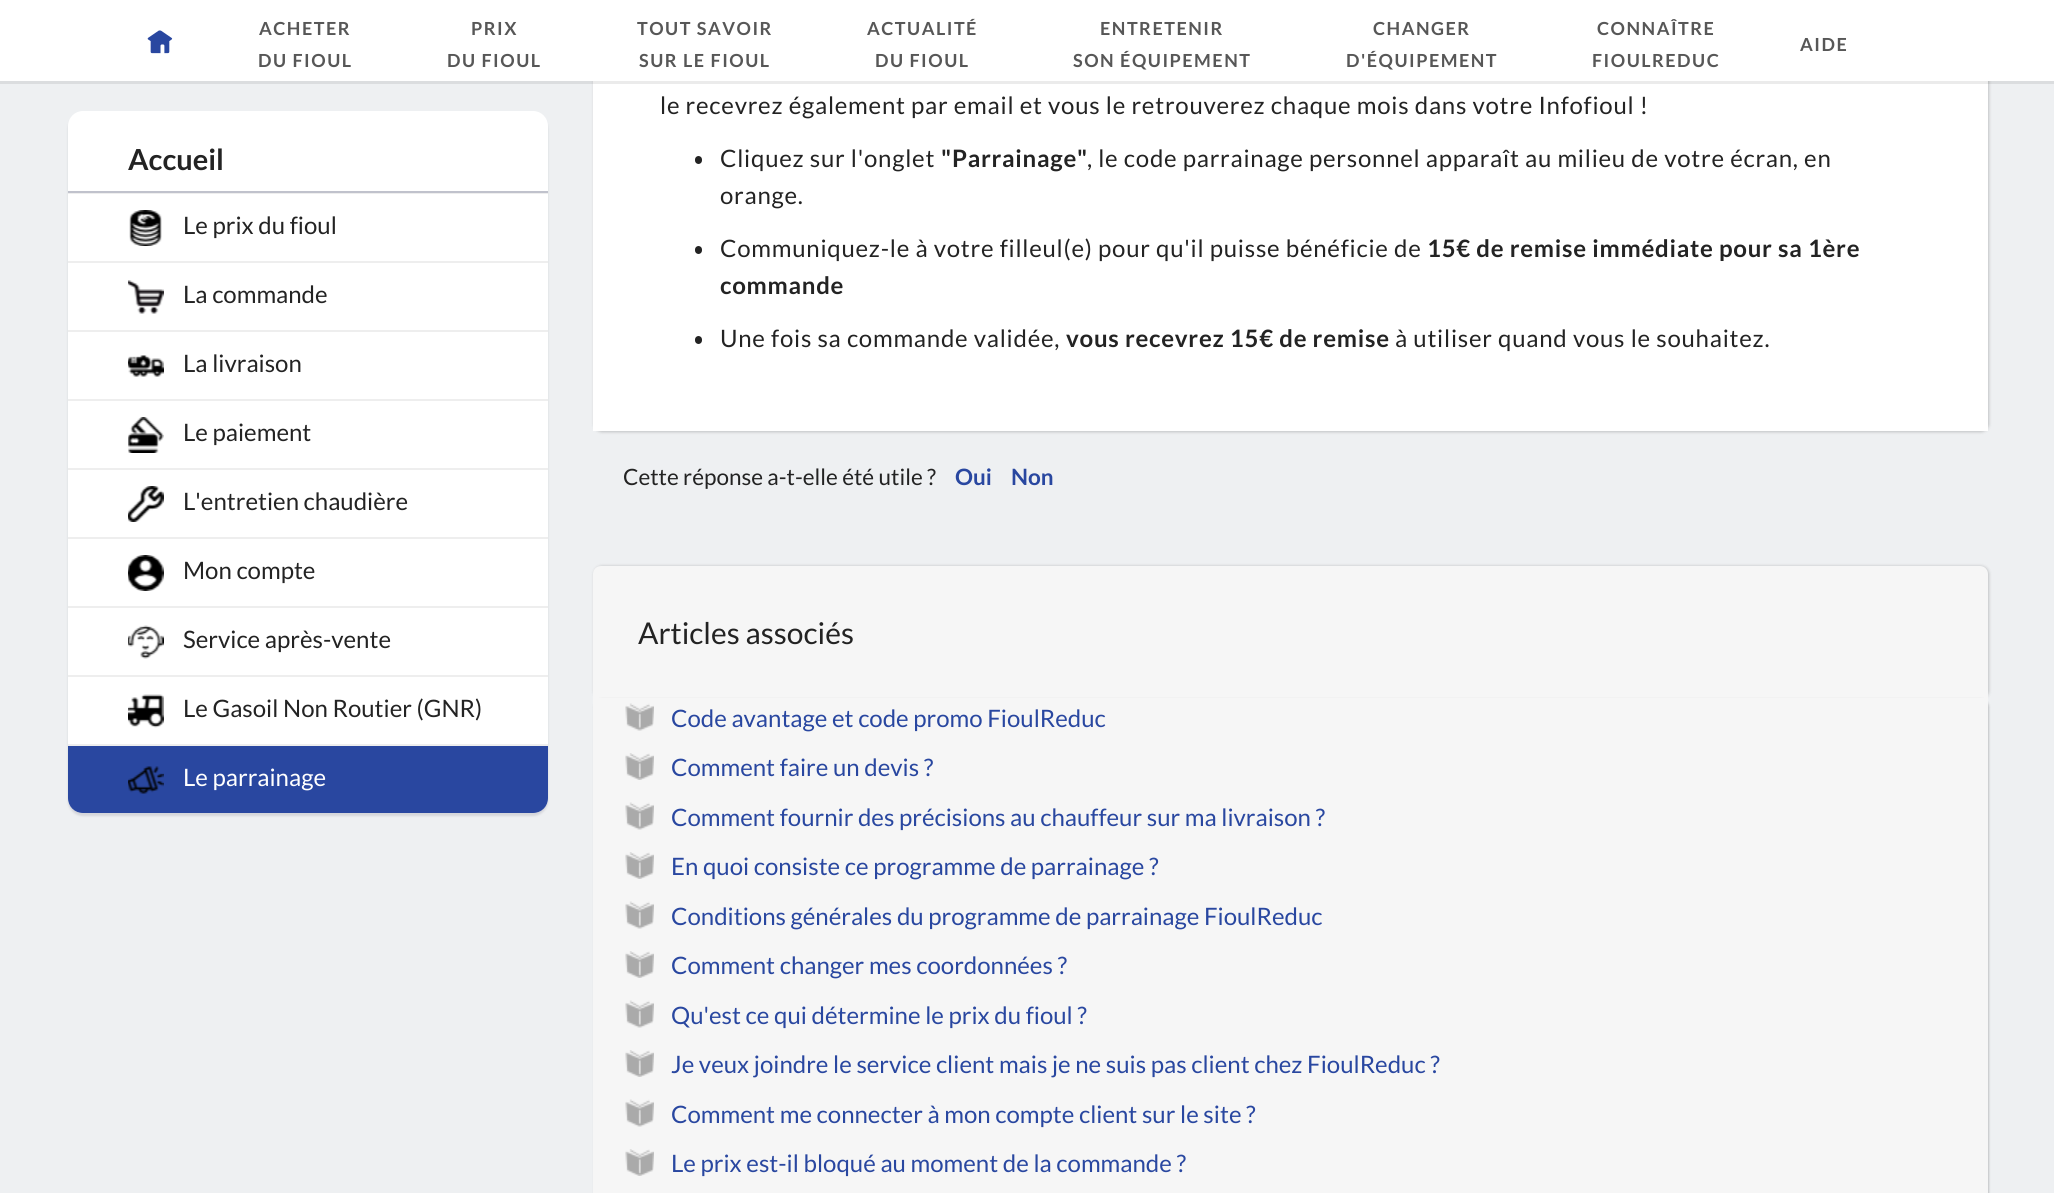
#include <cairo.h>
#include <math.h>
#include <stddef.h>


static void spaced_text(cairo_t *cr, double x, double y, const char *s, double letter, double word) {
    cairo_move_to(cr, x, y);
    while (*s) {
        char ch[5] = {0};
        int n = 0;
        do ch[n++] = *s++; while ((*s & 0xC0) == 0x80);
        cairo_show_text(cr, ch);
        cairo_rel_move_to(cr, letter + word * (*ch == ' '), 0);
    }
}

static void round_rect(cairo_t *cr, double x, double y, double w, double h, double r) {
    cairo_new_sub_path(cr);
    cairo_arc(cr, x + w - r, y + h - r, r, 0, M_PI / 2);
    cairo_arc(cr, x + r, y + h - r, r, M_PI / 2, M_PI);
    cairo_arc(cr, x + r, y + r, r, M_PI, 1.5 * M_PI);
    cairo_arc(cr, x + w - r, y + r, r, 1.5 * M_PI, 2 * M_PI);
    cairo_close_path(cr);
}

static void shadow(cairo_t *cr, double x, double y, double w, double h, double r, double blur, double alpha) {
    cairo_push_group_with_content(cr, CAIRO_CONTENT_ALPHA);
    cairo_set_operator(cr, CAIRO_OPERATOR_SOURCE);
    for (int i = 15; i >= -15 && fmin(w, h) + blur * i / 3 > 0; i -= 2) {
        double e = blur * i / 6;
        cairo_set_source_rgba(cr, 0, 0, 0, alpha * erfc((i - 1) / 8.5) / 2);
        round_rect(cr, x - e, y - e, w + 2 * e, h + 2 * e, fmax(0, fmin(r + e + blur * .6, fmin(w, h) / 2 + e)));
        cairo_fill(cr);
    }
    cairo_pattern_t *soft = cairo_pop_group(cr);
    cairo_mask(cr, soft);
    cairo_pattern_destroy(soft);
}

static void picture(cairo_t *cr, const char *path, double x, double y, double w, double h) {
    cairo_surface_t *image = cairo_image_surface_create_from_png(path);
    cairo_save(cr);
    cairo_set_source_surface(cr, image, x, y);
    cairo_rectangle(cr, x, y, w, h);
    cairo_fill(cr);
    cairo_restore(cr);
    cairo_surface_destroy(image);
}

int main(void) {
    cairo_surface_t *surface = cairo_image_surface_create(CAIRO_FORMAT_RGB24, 2054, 1193);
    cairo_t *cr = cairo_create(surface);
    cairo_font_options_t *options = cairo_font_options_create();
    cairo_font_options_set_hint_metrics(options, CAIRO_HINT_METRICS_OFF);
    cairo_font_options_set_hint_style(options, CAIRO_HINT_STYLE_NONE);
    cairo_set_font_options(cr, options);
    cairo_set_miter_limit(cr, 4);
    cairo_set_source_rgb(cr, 0.933, 0.941, 0.949);
    cairo_paint(cr);
    cairo_set_source_rgb(cr, 0, 0, 0);
    shadow(cr, 594, -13, 1395, 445, 8, 1.5, 0.2);
    cairo_set_source_rgb(cr, 1, 1, 1);
    cairo_rectangle(cr, 593, 81, 1395, 350);
    cairo_fill(cr);
    cairo_set_source_rgba(cr, 0, 0, 0, 0.08);
    cairo_rectangle(cr, 0, 81, 2054, 3);
    cairo_fill(cr);
    cairo_set_source_rgb(cr, 1, 1, 1);
    cairo_rectangle(cr, 0, 0, 2054, 81);
    cairo_fill(cr);
    picture(cr, "img1.png", 147, 30, 26, 24);
    cairo_select_font_face(cr, "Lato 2", CAIRO_FONT_SLANT_NORMAL, CAIRO_FONT_WEIGHT_BOLD);
    cairo_set_font_size(cr, 18);
    cairo_set_source_rgb(cr, 0.341, 0.341, 0.341);
    spaced_text(cr, 259, 35, "ACHETER", 1.5, 0);
    spaced_text(cr, 258, 67, "DU FIOUL", 1.5, 0);
    spaced_text(cr, 471, 35, "PRIX", 1.5, 0);
    spaced_text(cr, 447, 67, "DU FIOUL", 1.5, 0);
    spaced_text(cr, 637, 35, "TOUT SAVOIR", 1.5, 0);
    spaced_text(cr, 639, 67, "SUR LE FIOUL", 1.5, 0);
    spaced_text(cr, 867, 35, "ACTUALITÉ", 1.5, 0);
    spaced_text(cr, 875, 67, "DU FIOUL", 1.5, 0);
    spaced_text(cr, 1100, 35, "ENTRETENIR", 1.5, 0);
    spaced_text(cr, 1073, 67, "SON ÉQUIPEMENT", 1.5, 0);
    spaced_text(cr, 1373, 35, "CHANGER", 1.5, 0);
    spaced_text(cr, 1346, 67, "D'ÉQUIPEMENT", 1.5, 0);
    spaced_text(cr, 1597, 35, "CONNAÎTRE", 1.5, 0);
    spaced_text(cr, 1592, 67, "FIOULREDUC", 1.5, 0);
    spaced_text(cr, 1800, 51, "AIDE", 1.5, 0);
    cairo_set_source_rgb(cr, 0.8, 0.804, 0.827);
    shadow(cr, 68, 114, 480, 702, 15, 1, 0.75);
    cairo_set_source_rgb(cr, 1, 1, 1);
    round_rect(cr, 68, 111, 480, 702, 15);
    cairo_fill(cr);
    cairo_set_source_rgb(cr, 0.933, 0.933, 0.933);
    cairo_rectangle(cr, 68, 193, 480, 1);
    cairo_fill(cr);
    cairo_set_source_rgb(cr, 0.753, 0.761, 0.8);
    cairo_rectangle(cr, 68, 191, 480, 2);
    cairo_fill(cr);
    cairo_set_font_size(cr, 29);
    cairo_set_source_rgb(cr, 0.137, 0.137, 0.137);
    cairo_move_to(cr, 128, 170);
    cairo_show_text(cr, "Accueil");
    cairo_set_source_rgb(cr, 0.933, 0.933, 0.933);
    cairo_rectangle(cr, 68, 261, 480, 2);
    cairo_fill(cr);
    picture(cr, "img2.png", 129, 210, 33, 36);
    cairo_select_font_face(cr, "Lato", CAIRO_FONT_SLANT_NORMAL, CAIRO_FONT_WEIGHT_NORMAL);
    cairo_set_font_size(cr, 24);
    cairo_set_source_rgb(cr, 0.137, 0.137, 0.137);
    cairo_move_to(cr, 183, 234);
    cairo_show_text(cr, "Le prix du fioul");
    cairo_set_source_rgb(cr, 0.933, 0.933, 0.933);
    cairo_rectangle(cr, 68, 330, 480, 2);
    cairo_fill(cr);
    picture(cr, "img3.png", 128, 280, 36, 34);
    cairo_set_source_rgb(cr, 0.137, 0.137, 0.137);
    cairo_move_to(cr, 183, 303);
    cairo_show_text(cr, "La commande");
    cairo_set_source_rgb(cr, 0.933, 0.933, 0.933);
    cairo_rectangle(cr, 68, 399, 480, 2);
    cairo_fill(cr);
    picture(cr, "img4.png", 128, 355, 36, 22);
    cairo_set_source_rgb(cr, 0.137, 0.137, 0.137);
    cairo_move_to(cr, 183, 372);
    cairo_show_text(cr, "La livraison");
    cairo_set_source_rgb(cr, 0.933, 0.933, 0.933);
    cairo_rectangle(cr, 68, 468, 480, 2);
    cairo_fill(cr);
    picture(cr, "img5.png", 128, 417, 36, 36);
    cairo_set_source_rgb(cr, 0.137, 0.137, 0.137);
    cairo_move_to(cr, 183, 441);
    cairo_show_text(cr, "Le paiement");
    cairo_set_source_rgb(cr, 0.933, 0.933, 0.933);
    cairo_rectangle(cr, 68, 537, 480, 2);
    cairo_fill(cr);
    picture(cr, "img6.png", 128, 486, 36, 36);
    cairo_set_source_rgb(cr, 0.137, 0.137, 0.137);
    cairo_move_to(cr, 183, 510);
    cairo_show_text(cr, "L'entretien chaudière");
    cairo_set_source_rgb(cr, 0.933, 0.933, 0.933);
    cairo_rectangle(cr, 68, 606, 480, 2);
    cairo_fill(cr);
    picture(cr, "img7.png", 128, 555, 36, 36);
    cairo_set_source_rgb(cr, 0.137, 0.137, 0.137);
    cairo_move_to(cr, 183, 579);
    cairo_show_text(cr, "Mon compte");
    cairo_set_source_rgb(cr, 0.933, 0.933, 0.933);
    cairo_rectangle(cr, 68, 675, 480, 2);
    cairo_fill(cr);
    picture(cr, "img8.png", 128, 625, 36, 34);
    cairo_set_source_rgb(cr, 0.137, 0.137, 0.137);
    cairo_move_to(cr, 183, 648);
    cairo_show_text(cr, "Service après-vente");
    cairo_set_source_rgb(cr, 0.933, 0.933, 0.933);
    cairo_rectangle(cr, 68, 744, 480, 2);
    cairo_fill(cr);
    picture(cr, "img9.png", 128, 694, 36, 34);
    cairo_set_source_rgb(cr, 0.137, 0.137, 0.137);
    cairo_move_to(cr, 183, 717);
    cairo_show_text(cr, "Le Gasoil Non Routier (GNR)");
    cairo_set_source_rgb(cr, 0.161, 0.278, 0.627);
    cairo_new_path(cr);
    cairo_move_to(cr, 68, 746);
    cairo_line_to(cr, 548, 746);
    cairo_line_to(cr, 548, 798);
    cairo_curve_to(cr, 548, 806.5, 541.5, 813, 533, 813);
    cairo_line_to(cr, 83, 813);
    cairo_curve_to(cr, 74.5, 813, 68, 806.5, 68, 798);
    cairo_close_path(cr);
    cairo_fill(cr);
    picture(cr, "img10.png", 128, 766, 36, 28);
    cairo_set_source_rgb(cr, 1, 1, 1);
    cairo_move_to(cr, 183, 786);
    cairo_show_text(cr, "Le parrainage");
    cairo_set_source_rgb(cr, 0.137, 0.137, 0.137);
    spaced_text(cr, 660, 114, "le recevrez également par email et vous le retrouverez chaque mois dans votre Infofioul !", 0.75, 0);
    round_rect(cr, 695, 156, 7, 8, 3.5);
    cairo_fill(cr);
    spaced_text(cr, 720, 167, "Cliquez sur l'onglet", 0.75, 0);
    cairo_select_font_face(cr, "Lato 2", CAIRO_FONT_SLANT_NORMAL, CAIRO_FONT_WEIGHT_BOLD);
    spaced_text(cr, 941, 167, "\"Parrainage\"", 0.75, 0);
    cairo_select_font_face(cr, "Lato", CAIRO_FONT_SLANT_NORMAL, CAIRO_FONT_WEIGHT_NORMAL);
    spaced_text(cr, 1087, 167, ", le code parrainage personnel apparaît au milieu de votre écran, en", 0.75, 0);
    spaced_text(cr, 720, 204, "orange.", 0.75, 0);
    round_rect(cr, 695, 246, 7, 8, 3.5);
    cairo_fill(cr);
    spaced_text(cr, 720, 257, "Communiquez-le à votre filleul(e) pour qu'il puisse bénéficie de", 0.75, 0);
    cairo_select_font_face(cr, "Lato 2", CAIRO_FONT_SLANT_NORMAL, CAIRO_FONT_WEIGHT_BOLD);
    spaced_text(cr, 1427, 257, "15€ de remise immédiate pour sa 1ère", 0.75, 0);
    spaced_text(cr, 720, 294, "commande", 0.75, 0);
    round_rect(cr, 695, 336, 7, 8, 3.5);
    cairo_fill(cr);
    cairo_select_font_face(cr, "Lato", CAIRO_FONT_SLANT_NORMAL, CAIRO_FONT_WEIGHT_NORMAL);
    spaced_text(cr, 720, 347, "Une fois sa commande validée,", 0.75, 0);
    cairo_select_font_face(cr, "Lato 2", CAIRO_FONT_SLANT_NORMAL, CAIRO_FONT_WEIGHT_BOLD);
    spaced_text(cr, 1066, 347, "vous recevrez 15€ de remise", 0.75, 0);
    cairo_select_font_face(cr, "Lato", CAIRO_FONT_SLANT_NORMAL, CAIRO_FONT_WEIGHT_NORMAL);
    spaced_text(cr, 1395, 347, "à utiliser quand vous le souhaitez.", 0.75, 0);
    cairo_set_font_size(cr, 22.5);
    cairo_move_to(cr, 623, 485);
    cairo_show_text(cr, "Cette réponse a-t-elle été utile ?");
    cairo_select_font_face(cr, "Lato", CAIRO_FONT_SLANT_NORMAL, CAIRO_FONT_WEIGHT_BOLD);
    cairo_set_source_rgb(cr, 0.161, 0.278, 0.627);
    cairo_move_to(cr, 955, 485);
    cairo_show_text(cr, "Oui");
    cairo_move_to(cr, 1011, 485);
    cairo_show_text(cr, "Non");
    cairo_set_source_rgb(cr, 0, 0, 0);
    shadow(cr, 594, 566, 1395, 133, 8, 1.5, 0.2);
    cairo_set_source_rgb(cr, 0.961, 0.961, 0.961);
    cairo_new_path(cr);
    cairo_move_to(cr, 601, 566);
    cairo_line_to(cr, 1980, 566);
    cairo_curve_to(cr, 1984.5, 566, 1988, 569.5, 1988, 574);
    cairo_line_to(cr, 1988, 699);
    cairo_line_to(cr, 593, 699);
    cairo_line_to(cr, 593, 574);
    cairo_curve_to(cr, 593, 569.5, 596.5, 566, 601, 566);
    cairo_close_path(cr);
    cairo_fill(cr);
    cairo_select_font_face(cr, "Lato", CAIRO_FONT_SLANT_NORMAL, CAIRO_FONT_WEIGHT_NORMAL);
    cairo_set_font_size(cr, 30);
    cairo_set_source_rgb(cr, 0.137, 0.137, 0.137);
    cairo_move_to(cr, 638, 644);
    cairo_show_text(cr, "Articles associés");
    cairo_set_source_rgb(cr, 0, 0, 0);
    shadow(cr, 594, 699, 1395, 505, 8, 1, 0.2);
    cairo_set_source_rgb(cr, 0.961, 0.961, 0.961);
    cairo_rectangle(cr, 593, 698, 1395, 495);
    cairo_fill(cr);
    picture(cr, "img11.png", 625, 703, 29, 28);
    cairo_set_font_size(cr, 24);
    cairo_set_source_rgb(cr, 0.161, 0.278, 0.627);
    cairo_move_to(cr, 671, 727);
    cairo_show_text(cr, "Code avantage et code promo FioulReduc");
    picture(cr, "img12.png", 625, 753, 29, 27);
    cairo_move_to(cr, 671, 776);
    cairo_show_text(cr, "Comment faire un devis ?");
    picture(cr, "img11.png", 625, 802, 29, 28);
    cairo_move_to(cr, 671, 826);
    cairo_show_text(cr, "Comment fournir des précisions au chauffeur sur ma livraison ?");
    picture(cr, "img12.png", 625, 852, 29, 27);
    cairo_move_to(cr, 671, 875);
    cairo_show_text(cr, "En quoi consiste ce programme de parrainage ?");
    picture(cr, "img11.png", 625, 901, 29, 28);
    cairo_move_to(cr, 671, 925);
    cairo_show_text(cr, "Conditions générales du programme de parrainage FioulReduc");
    picture(cr, "img12.png", 625, 951, 29, 27);
    cairo_move_to(cr, 671, 974);
    cairo_show_text(cr, "Comment changer mes coordonnées ?");
    picture(cr, "img11.png", 625, 1000, 29, 28);
    cairo_move_to(cr, 671, 1024);
    cairo_show_text(cr, "Qu'est ce qui détermine le prix du fioul ?");
    picture(cr, "img12.png", 625, 1050, 29, 27);
    cairo_move_to(cr, 671, 1073);
    cairo_show_text(cr, "Je veux joindre le service client mais je ne suis pas client chez FioulReduc ?");
    picture(cr, "img11.png", 625, 1099, 29, 28);
    cairo_move_to(cr, 671, 1123);
    cairo_show_text(cr, "Comment me connecter à mon compte client sur le site ?");
    picture(cr, "img12.png", 625, 1149, 29, 27);
    cairo_move_to(cr, 671, 1172);
    cairo_show_text(cr, "Le prix est-il bloqué au moment de la commande ?");
    cairo_surface_write_to_png(surface, "page.png");
    cairo_font_options_destroy(options);
    cairo_destroy(cr);
    cairo_surface_destroy(surface);
    return 0;
}
